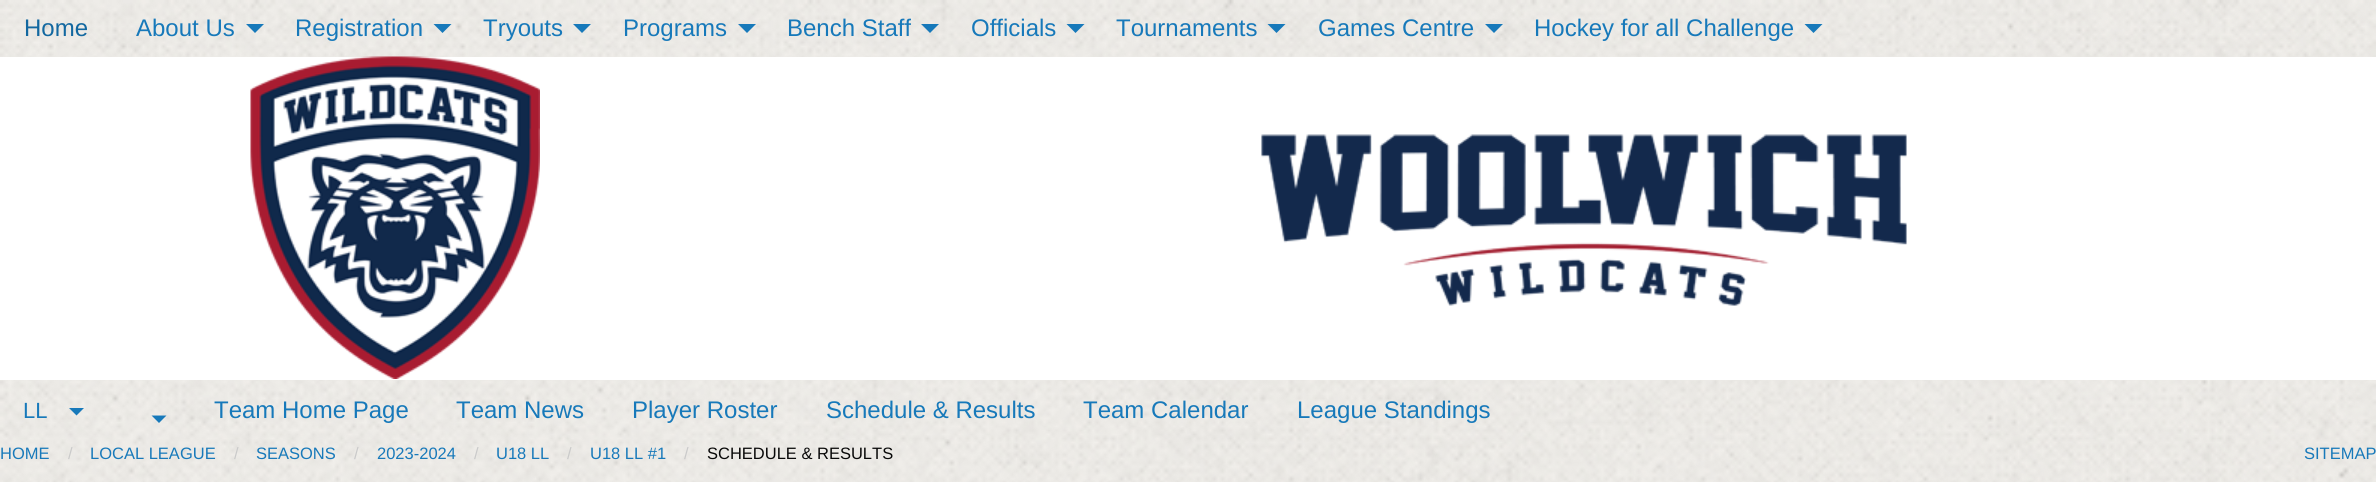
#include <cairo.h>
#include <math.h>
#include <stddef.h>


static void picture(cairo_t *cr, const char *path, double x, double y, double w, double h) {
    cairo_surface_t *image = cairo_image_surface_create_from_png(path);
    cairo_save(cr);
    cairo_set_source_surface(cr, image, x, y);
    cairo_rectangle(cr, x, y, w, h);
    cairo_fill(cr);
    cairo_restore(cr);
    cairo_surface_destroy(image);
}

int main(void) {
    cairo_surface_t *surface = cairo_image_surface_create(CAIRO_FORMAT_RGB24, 2376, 482);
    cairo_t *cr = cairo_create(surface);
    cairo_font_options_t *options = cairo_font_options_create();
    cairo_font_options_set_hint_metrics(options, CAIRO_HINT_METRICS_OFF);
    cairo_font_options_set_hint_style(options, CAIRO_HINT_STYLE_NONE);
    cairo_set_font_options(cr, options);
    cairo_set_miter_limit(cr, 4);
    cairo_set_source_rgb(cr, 1, 1, 1);
    cairo_paint(cr);
    picture(cr, "img1.png", 0, 0, 2376, 482);
    cairo_select_font_face(cr, "Liberation Sans", CAIRO_FONT_SLANT_NORMAL, CAIRO_FONT_WEIGHT_NORMAL);
    cairo_set_font_size(cr, 24);
    cairo_set_source_rgb(cr, 0.078, 0.408, 0.627);
    cairo_move_to(cr, 24, 36);
    cairo_show_text(cr, "Home");
    cairo_set_source_rgb(cr, 0.09, 0.475, 0.729);
    cairo_move_to(cr, 136, 36);
    cairo_show_text(cr, "About Us");
    cairo_new_path(cr);
    cairo_move_to(cr, 246, 24);
    cairo_line_to(cr, 264, 24);
    cairo_line_to(cr, 255, 33);
    cairo_close_path(cr);
    cairo_fill(cr);
    cairo_move_to(cr, 295, 36);
    cairo_show_text(cr, "Registration");
    cairo_new_path(cr);
    cairo_move_to(cr, 433.5, 24);
    cairo_line_to(cr, 451.5, 24);
    cairo_line_to(cr, 442.5, 33);
    cairo_close_path(cr);
    cairo_fill(cr);
    cairo_move_to(cr, 483, 36);
    cairo_show_text(cr, "Tryouts");
    cairo_new_path(cr);
    cairo_move_to(cr, 573, 24);
    cairo_line_to(cr, 591, 24);
    cairo_line_to(cr, 582, 33);
    cairo_close_path(cr);
    cairo_fill(cr);
    cairo_move_to(cr, 623, 36);
    cairo_show_text(cr, "Programs");
    cairo_new_path(cr);
    cairo_move_to(cr, 738, 24);
    cairo_line_to(cr, 756, 24);
    cairo_line_to(cr, 747, 33);
    cairo_close_path(cr);
    cairo_fill(cr);
    cairo_move_to(cr, 787, 36);
    cairo_show_text(cr, "Bench Staff");
    cairo_new_path(cr);
    cairo_move_to(cr, 921, 24);
    cairo_line_to(cr, 939, 24);
    cairo_line_to(cr, 930, 33);
    cairo_close_path(cr);
    cairo_fill(cr);
    cairo_move_to(cr, 971, 36);
    cairo_show_text(cr, "Officials");
    cairo_new_path(cr);
    cairo_move_to(cr, 1066.5, 24);
    cairo_line_to(cr, 1084.5, 24);
    cairo_line_to(cr, 1075.5, 33);
    cairo_close_path(cr);
    cairo_fill(cr);
    cairo_move_to(cr, 1116, 36);
    cairo_show_text(cr, "Tournaments");
    cairo_new_path(cr);
    cairo_move_to(cr, 1267.5, 24);
    cairo_line_to(cr, 1285.5, 24);
    cairo_line_to(cr, 1276.5, 33);
    cairo_close_path(cr);
    cairo_fill(cr);
    cairo_move_to(cr, 1318, 36);
    cairo_show_text(cr, "Games Centre");
    cairo_new_path(cr);
    cairo_move_to(cr, 1485, 24);
    cairo_line_to(cr, 1503, 24);
    cairo_line_to(cr, 1494, 33);
    cairo_close_path(cr);
    cairo_fill(cr);
    cairo_move_to(cr, 1534, 36);
    cairo_show_text(cr, "Hockey for all Challenge");
    cairo_new_path(cr);
    cairo_move_to(cr, 1804.5, 24);
    cairo_line_to(cr, 1822.5, 24);
    cairo_line_to(cr, 1813.5, 33);
    cairo_close_path(cr);
    cairo_fill(cr);
    cairo_set_source_rgb(cr, 1, 1, 1);
    cairo_rectangle(cr, 0, 57, 2376, 323);
    cairo_fill(cr);
    picture(cr, "img2.png", 250, 56, 290, 323);
    picture(cr, "img3.png", 1261, 134, 646, 172);
    cairo_set_font_size(cr, 22);
    cairo_set_source_rgb(cr, 0.09, 0.475, 0.729);
    cairo_move_to(cr, 23, 418);
    cairo_show_text(cr, "LL");
    cairo_new_path(cr);
    cairo_move_to(cr, 69, 408);
    cairo_line_to(cr, 84, 408);
    cairo_line_to(cr, 76.5, 415.5);
    cairo_close_path(cr);
    cairo_fill(cr);
    cairo_set_font_size(cr, 24);
    cairo_move_to(cr, 214, 418);
    cairo_show_text(cr, "Team Home Page");
    cairo_move_to(cr, 456, 418);
    cairo_show_text(cr, "Team News");
    cairo_move_to(cr, 632, 418);
    cairo_show_text(cr, "Player Roster");
    cairo_move_to(cr, 826, 418);
    cairo_show_text(cr, "Schedule & Results");
    cairo_move_to(cr, 1083, 418);
    cairo_show_text(cr, "Team Calendar");
    cairo_move_to(cr, 1297, 418);
    cairo_show_text(cr, "League Standings");
    cairo_new_path(cr);
    cairo_move_to(cr, 151.5, 415.5);
    cairo_line_to(cr, 166.5, 415.5);
    cairo_line_to(cr, 159, 423);
    cairo_close_path(cr);
    cairo_fill(cr);
    cairo_set_font_size(cr, 16.5);
    cairo_move_to(cr, 0, 459);
    cairo_show_text(cr, "HOME");
    cairo_set_source_rgb(cr, 0.792, 0.792, 0.792);
    cairo_move_to(cr, 68, 459);
    cairo_show_text(cr, "/");
    cairo_set_source_rgb(cr, 0.09, 0.475, 0.729);
    cairo_move_to(cr, 90, 459);
    cairo_show_text(cr, "LOCAL LEAGUE");
    cairo_set_source_rgb(cr, 0.792, 0.792, 0.792);
    cairo_move_to(cr, 234, 459);
    cairo_show_text(cr, "/");
    cairo_set_source_rgb(cr, 0.09, 0.475, 0.729);
    cairo_move_to(cr, 256, 459);
    cairo_show_text(cr, "SEASONS");
    cairo_set_source_rgb(cr, 0.792, 0.792, 0.792);
    cairo_move_to(cr, 354, 459);
    cairo_show_text(cr, "/");
    cairo_set_source_rgb(cr, 0.09, 0.475, 0.729);
    cairo_move_to(cr, 377, 459);
    cairo_show_text(cr, "2023-2024");
    cairo_set_source_rgb(cr, 0.792, 0.792, 0.792);
    cairo_move_to(cr, 474, 459);
    cairo_show_text(cr, "/");
    cairo_set_source_rgb(cr, 0.09, 0.475, 0.729);
    cairo_move_to(cr, 496, 459);
    cairo_show_text(cr, "U18 LL");
    cairo_set_source_rgb(cr, 0.792, 0.792, 0.792);
    cairo_move_to(cr, 567, 459);
    cairo_show_text(cr, "/");
    cairo_set_source_rgb(cr, 0.09, 0.475, 0.729);
    cairo_move_to(cr, 590, 459);
    cairo_show_text(cr, "U18 LL #1");
    cairo_set_source_rgb(cr, 0.792, 0.792, 0.792);
    cairo_move_to(cr, 684, 459);
    cairo_show_text(cr, "/");
    cairo_set_source_rgb(cr, 0.039, 0.039, 0.039);
    cairo_move_to(cr, 707, 459);
    cairo_show_text(cr, "SCHEDULE & RESULTS");
    cairo_set_source_rgb(cr, 0.09, 0.475, 0.729);
    cairo_move_to(cr, 2304, 459);
    cairo_show_text(cr, "SITEMAP");
    cairo_surface_write_to_png(surface, "page.png");
    cairo_font_options_destroy(options);
    cairo_destroy(cr);
    cairo_surface_destroy(surface);
    return 0;
}
